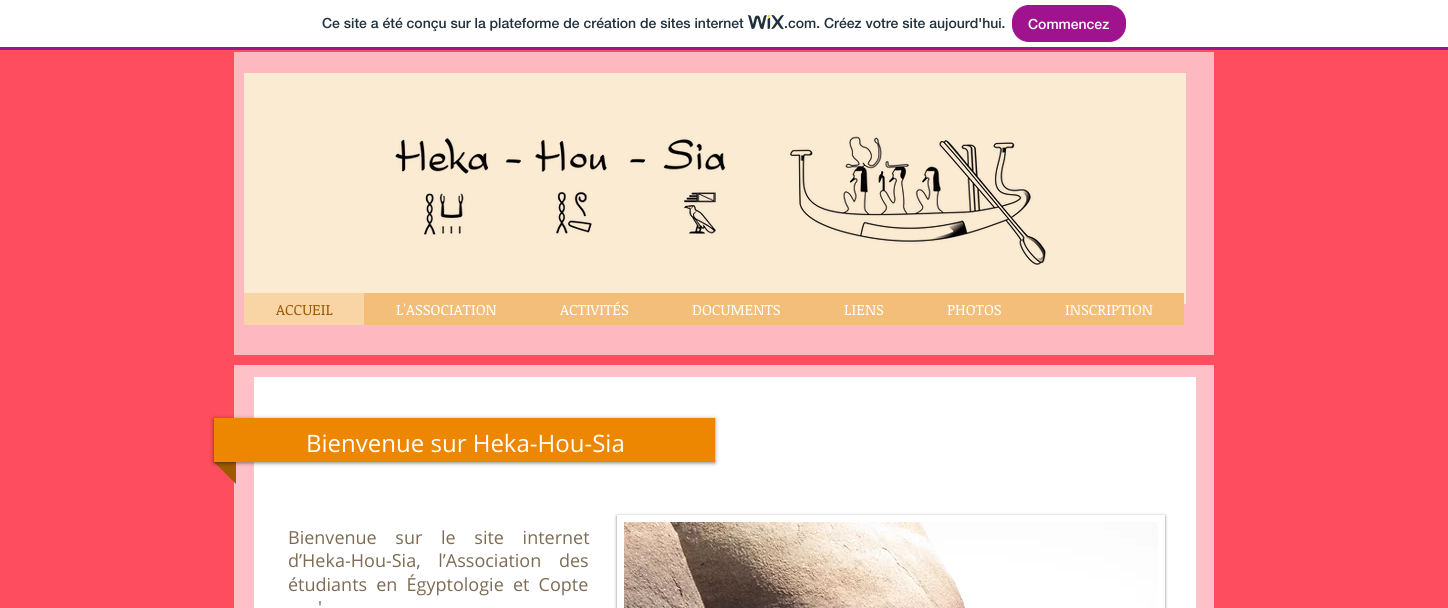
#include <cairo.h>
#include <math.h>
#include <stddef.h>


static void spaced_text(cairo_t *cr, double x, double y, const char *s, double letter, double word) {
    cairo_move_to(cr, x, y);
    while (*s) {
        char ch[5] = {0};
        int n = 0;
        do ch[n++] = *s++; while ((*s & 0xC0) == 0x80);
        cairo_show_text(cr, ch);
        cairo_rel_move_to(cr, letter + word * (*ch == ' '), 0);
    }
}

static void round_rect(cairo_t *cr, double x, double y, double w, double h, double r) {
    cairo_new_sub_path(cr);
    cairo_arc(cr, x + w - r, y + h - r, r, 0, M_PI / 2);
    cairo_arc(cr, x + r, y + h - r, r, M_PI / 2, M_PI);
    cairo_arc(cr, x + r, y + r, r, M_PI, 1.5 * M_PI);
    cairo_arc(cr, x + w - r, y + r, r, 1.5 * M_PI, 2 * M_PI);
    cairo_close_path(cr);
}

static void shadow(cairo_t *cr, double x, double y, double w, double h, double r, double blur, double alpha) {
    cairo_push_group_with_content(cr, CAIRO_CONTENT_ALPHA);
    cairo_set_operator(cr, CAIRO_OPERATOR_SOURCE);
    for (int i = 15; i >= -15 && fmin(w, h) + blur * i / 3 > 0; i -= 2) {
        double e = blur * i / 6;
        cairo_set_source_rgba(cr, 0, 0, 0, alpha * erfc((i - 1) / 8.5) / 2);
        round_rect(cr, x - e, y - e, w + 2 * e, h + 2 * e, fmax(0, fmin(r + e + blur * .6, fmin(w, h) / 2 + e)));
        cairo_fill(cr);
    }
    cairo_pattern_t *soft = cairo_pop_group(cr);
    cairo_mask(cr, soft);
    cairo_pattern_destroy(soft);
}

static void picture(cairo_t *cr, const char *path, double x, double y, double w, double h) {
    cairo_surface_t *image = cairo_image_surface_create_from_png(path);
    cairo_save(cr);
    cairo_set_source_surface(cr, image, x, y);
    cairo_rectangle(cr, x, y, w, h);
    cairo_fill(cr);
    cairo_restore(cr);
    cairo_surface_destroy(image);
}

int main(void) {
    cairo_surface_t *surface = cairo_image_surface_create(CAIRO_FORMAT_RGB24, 1448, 608);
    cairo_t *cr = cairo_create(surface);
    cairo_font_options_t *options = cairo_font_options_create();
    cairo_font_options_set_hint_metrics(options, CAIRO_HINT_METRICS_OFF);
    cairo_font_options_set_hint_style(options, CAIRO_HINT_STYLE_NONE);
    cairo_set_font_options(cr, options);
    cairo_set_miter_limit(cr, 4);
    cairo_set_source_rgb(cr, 1, 1, 1);
    cairo_paint(cr);
    cairo_set_source_rgb(cr, 0.627, 0.075, 0.557);
    cairo_rectangle(cr, 0, 47, 1448, 3);
    cairo_fill(cr);
    cairo_select_font_face(cr, "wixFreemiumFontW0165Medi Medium", CAIRO_FONT_SLANT_NORMAL, CAIRO_FONT_WEIGHT_NORMAL);
    cairo_set_font_size(cr, 14);
    cairo_set_source_rgb(cr, 0.125, 0.188, 0.235);
    cairo_move_to(cr, 322, 28);
    cairo_show_text(cr, "Ce site a été conçu sur la plateforme de création de sites internet");
    picture(cr, "img1.png", 748, 15, 36, 15);
    cairo_move_to(cr, 784, 28);
    cairo_show_text(cr, ".com. Créez votre site aujourd'hui.");
    cairo_set_source_rgb(cr, 0.627, 0.075, 0.557);
    round_rect(cr, 1012.5, 5.5, 113, 36, 16.5);
    cairo_fill_preserve(cr);
    cairo_set_line_width(cr, 1);
    cairo_stroke(cr);
    cairo_set_source_rgb(cr, 1, 1, 1);
    cairo_move_to(cr, 1028, 29);
    cairo_show_text(cr, "Commencez");
    cairo_set_source_rgb(cr, 0.992, 0.302, 0.369);
    cairo_rectangle(cr, 0, 50, 1448, 558);
    cairo_fill(cr);
    cairo_set_source_rgb(cr, 0.996, 0.722, 0.749);
    cairo_rectangle(cr, 234, 52, 980, 303);
    cairo_fill(cr);
    cairo_set_source_rgb(cr, 0.988, 0.918, 0.827);
    cairo_rectangle(cr, 244, 73, 942, 231);
    cairo_fill(cr);
    picture(cr, "img2.png", 395, 136, 651, 130);
    cairo_set_source_rgb(cr, 0.953, 0.745, 0.478);
    cairo_rectangle(cr, 364, 293, 820, 32);
    cairo_fill(cr);
    cairo_set_source_rgb(cr, 0.976, 0.835, 0.651);
    cairo_rectangle(cr, 244, 293, 120, 32);
    cairo_fill(cr);
    cairo_select_font_face(cr, "Noticia Text", CAIRO_FONT_SLANT_NORMAL, CAIRO_FONT_WEIGHT_NORMAL);
    cairo_set_font_size(cr, 15);
    cairo_set_source_rgb(cr, 0.62, 0.353, 0);
    cairo_move_to(cr, 276, 315);
    cairo_show_text(cr, "ACCUEIL");
    cairo_set_source_rgb(cr, 1, 1, 1);
    cairo_move_to(cr, 396, 315);
    cairo_show_text(cr, "L'ASSOCIATION");
    cairo_move_to(cr, 560, 315);
    cairo_show_text(cr, "ACTIVITÉS");
    cairo_move_to(cr, 692, 315);
    cairo_show_text(cr, "DOCUMENTS");
    cairo_move_to(cr, 844, 315);
    cairo_show_text(cr, "LIENS");
    cairo_move_to(cr, 947, 315);
    cairo_show_text(cr, "PHOTOS");
    cairo_move_to(cr, 1065, 315);
    cairo_show_text(cr, "INSCRIPTION");
    cairo_set_source_rgb(cr, 0.996, 0.757, 0.78);
    cairo_rectangle(cr, 234, 365, 980, 243);
    cairo_fill(cr);
    cairo_set_source_rgb(cr, 1, 1, 1);
    cairo_rectangle(cr, 254, 377, 942, 231);
    cairo_fill(cr);
    cairo_set_source_rgb(cr, 0.62, 0.353, 0);
    cairo_new_path(cr);
    cairo_move_to(cr, 214, 462);
    cairo_line_to(cr, 236, 462);
    cairo_line_to(cr, 236, 484);
    cairo_close_path(cr);
    cairo_fill(cr);
    cairo_set_source_rgb(cr, 0, 0, 0);
    shadow(cr, 214, 419, 501, 44, 0, 2, 0.5);
    cairo_set_source_rgb(cr, 0.929, 0.525, 0);
    cairo_rectangle(cr, 214, 418, 501, 44);
    cairo_fill(cr);
    cairo_select_font_face(cr, "Open Sans", CAIRO_FONT_SLANT_NORMAL, CAIRO_FONT_WEIGHT_NORMAL);
    cairo_set_font_size(cr, 24);
    cairo_set_source_rgb(cr, 1, 1, 1);
    cairo_move_to(cr, 306, 452);
    cairo_show_text(cr, "Bienvenue sur Heka-Hou-Sia");
    cairo_set_font_size(cr, 18);
    cairo_set_source_rgb(cr, 0.49, 0.42, 0.329);
    spaced_text(cr, 288, 544, "Bienvenue sur le site internet", 0, 14);
    spaced_text(cr, 288, 567, "d’Heka-Hou-Sia, l’Association des", 0, 13);
    spaced_text(cr, 288, 591, "étudiants en Égyptologie et Copte", 0, 4.5);
    cairo_move_to(cr, 318, 614);
    cairo_show_text(cr, "'");
    cairo_save(cr);
    cairo_set_fill_rule(cr, CAIRO_FILL_RULE_EVEN_ODD);
    cairo_new_path(cr);
    cairo_move_to(cr, 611, 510);
    cairo_line_to(cr, 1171, 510);
    cairo_line_to(cr, 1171, 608);
    cairo_line_to(cr, 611, 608);
    cairo_close_path(cr);
    cairo_move_to(cr, 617, 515);
    cairo_line_to(cr, 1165, 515);
    cairo_line_to(cr, 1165, 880);
    cairo_line_to(cr, 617, 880);
    cairo_close_path(cr);
    cairo_clip(cr);
    cairo_set_source_rgb(cr, 0, 0, 0);
    shadow(cr, 617, 516, 548, 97, 0, 1.5, 0.5);
    cairo_restore(cr);
    picture(cr, "img3.png", 624, 522, 534, 86);
    cairo_surface_write_to_png(surface, "page.png");
    cairo_font_options_destroy(options);
    cairo_destroy(cr);
    cairo_surface_destroy(surface);
    return 0;
}
